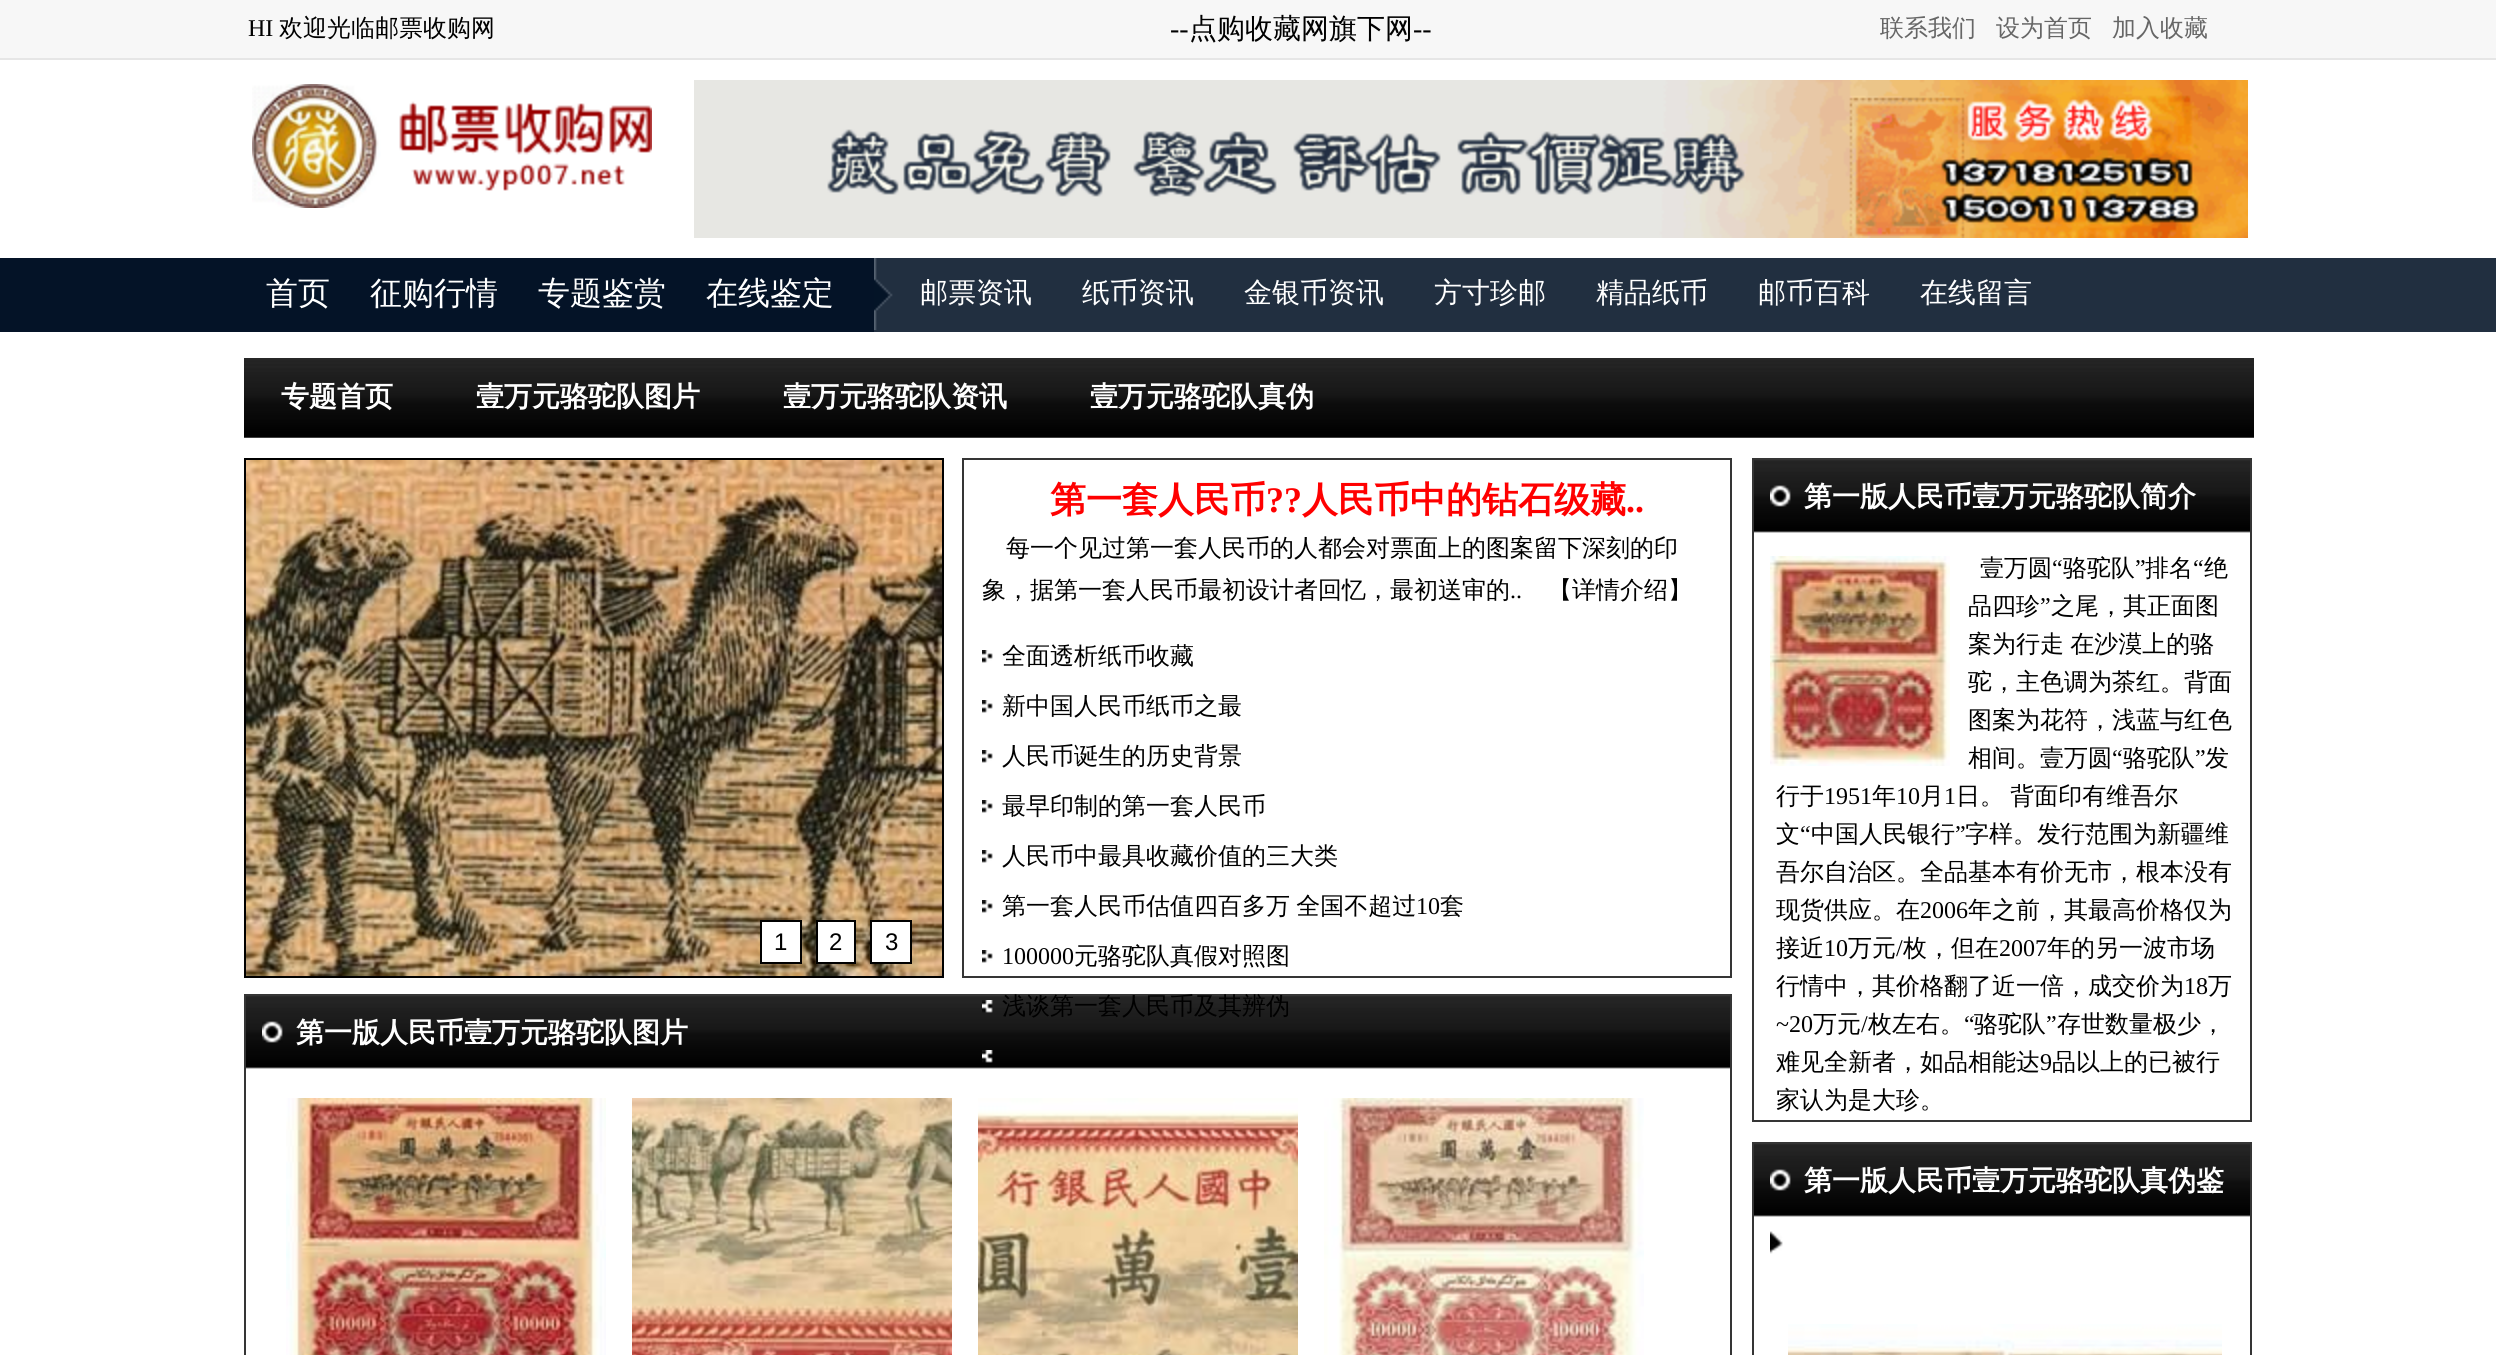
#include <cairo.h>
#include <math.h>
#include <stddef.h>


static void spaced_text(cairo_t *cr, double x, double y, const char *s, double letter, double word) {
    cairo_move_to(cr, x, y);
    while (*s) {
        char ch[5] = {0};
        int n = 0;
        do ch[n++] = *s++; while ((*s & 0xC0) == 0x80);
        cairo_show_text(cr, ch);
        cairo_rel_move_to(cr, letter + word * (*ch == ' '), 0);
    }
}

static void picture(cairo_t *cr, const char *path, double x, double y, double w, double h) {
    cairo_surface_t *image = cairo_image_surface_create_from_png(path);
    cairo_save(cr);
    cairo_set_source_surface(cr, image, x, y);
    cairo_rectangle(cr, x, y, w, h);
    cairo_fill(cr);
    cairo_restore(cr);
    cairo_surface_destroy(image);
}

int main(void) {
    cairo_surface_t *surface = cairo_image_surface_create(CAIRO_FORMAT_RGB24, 2496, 1355);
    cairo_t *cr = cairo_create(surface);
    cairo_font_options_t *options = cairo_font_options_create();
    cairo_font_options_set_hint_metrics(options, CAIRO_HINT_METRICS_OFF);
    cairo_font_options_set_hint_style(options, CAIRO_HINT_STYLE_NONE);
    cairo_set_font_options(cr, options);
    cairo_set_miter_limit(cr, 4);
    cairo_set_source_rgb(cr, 1, 1, 1);
    cairo_paint(cr);
    cairo_set_source_rgb(cr, 0.965, 0.965, 0.965);
    cairo_rectangle(cr, 0, 0, 2496, 58);
    cairo_fill(cr);
    cairo_set_source_rgb(cr, 0.902, 0.902, 0.902);
    cairo_rectangle(cr, 0, 58, 2496, 2);
    cairo_fill(cr);
    cairo_select_font_face(cr, "Liberation Serif", CAIRO_FONT_SLANT_NORMAL, CAIRO_FONT_WEIGHT_NORMAL);
    cairo_set_font_size(cr, 24);
    cairo_set_source_rgb(cr, 0, 0, 0);
    cairo_move_to(cr, 248, 36);
    cairo_show_text(cr, "HI");
    cairo_select_font_face(cr, "WenQuanYi Zen Hei Medium", CAIRO_FONT_SLANT_NORMAL, CAIRO_FONT_WEIGHT_NORMAL);
    cairo_move_to(cr, 279, 36);
    cairo_show_text(cr, "欢迎光临邮票收购网");
    cairo_select_font_face(cr, "Liberation Serif", CAIRO_FONT_SLANT_NORMAL, CAIRO_FONT_WEIGHT_NORMAL);
    cairo_set_font_size(cr, 28);
    cairo_move_to(cr, 1170, 38);
    cairo_show_text(cr, "--");
    cairo_select_font_face(cr, "WenQuanYi Zen Hei Medium", CAIRO_FONT_SLANT_NORMAL, CAIRO_FONT_WEIGHT_NORMAL);
    cairo_move_to(cr, 1189, 38);
    cairo_show_text(cr, "点购收藏网旗下网");
    cairo_select_font_face(cr, "Liberation Serif", CAIRO_FONT_SLANT_NORMAL, CAIRO_FONT_WEIGHT_NORMAL);
    cairo_move_to(cr, 1413, 38);
    cairo_show_text(cr, "--");
    cairo_select_font_face(cr, "WenQuanYi Zen Hei Medium", CAIRO_FONT_SLANT_NORMAL, CAIRO_FONT_WEIGHT_NORMAL);
    cairo_set_font_size(cr, 24);
    cairo_set_source_rgb(cr, 0.4, 0.4, 0.4);
    cairo_move_to(cr, 1880, 36);
    cairo_show_text(cr, "联系我们");
    cairo_move_to(cr, 1996, 36);
    cairo_show_text(cr, "设为首页");
    cairo_move_to(cr, 2112, 36);
    cairo_show_text(cr, "加入收藏");
    picture(cr, "img1.png", 252, 84, 400, 124);
    picture(cr, "img2.png", 694, 80, 1554, 158);
    cairo_set_source_rgb(cr, 0.016, 0.078, 0.153);
    cairo_rectangle(cr, 0, 258, 874, 74);
    cairo_fill(cr);
    cairo_set_font_size(cr, 32);
    cairo_set_source_rgb(cr, 1, 1, 1);
    cairo_move_to(cr, 266, 304);
    cairo_show_text(cr, "首页");
    cairo_move_to(cr, 370, 304);
    cairo_show_text(cr, "征购行情");
    cairo_move_to(cr, 538, 304);
    cairo_show_text(cr, "专题鉴赏");
    cairo_move_to(cr, 706, 304);
    cairo_show_text(cr, "在线鉴定");
    cairo_set_source_rgb(cr, 0.129, 0.184, 0.251);
    cairo_rectangle(cr, 874, 258, 1622, 74);
    cairo_fill(cr);
    picture(cr, "img3.png", 874, 258, 19, 72);
    cairo_set_font_size(cr, 28);
    cairo_set_source_rgb(cr, 1, 1, 1);
    cairo_move_to(cr, 920, 302);
    cairo_show_text(cr, "邮票资讯");
    cairo_move_to(cr, 1082, 302);
    cairo_show_text(cr, "纸币资讯");
    cairo_move_to(cr, 1244, 302);
    cairo_show_text(cr, "金银币资讯");
    cairo_move_to(cr, 1434, 302);
    cairo_show_text(cr, "方寸珍邮");
    cairo_move_to(cr, 1596, 302);
    cairo_show_text(cr, "精品纸币");
    cairo_move_to(cr, 1758, 302);
    cairo_show_text(cr, "邮币百科");
    cairo_move_to(cr, 1920, 302);
    cairo_show_text(cr, "在线留言");
    picture(cr, "img4.png", 244, 358, 2010, 80);
    cairo_select_font_face(cr, "WenQuanYi Zen Hei", CAIRO_FONT_SLANT_NORMAL, CAIRO_FONT_WEIGHT_BOLD);
    cairo_move_to(cr, 281, 406);
    cairo_show_text(cr, "专题首页");
    cairo_move_to(cr, 476, 406);
    cairo_show_text(cr, "壹万元骆驼队图片");
    cairo_move_to(cr, 783, 406);
    cairo_show_text(cr, "壹万元骆驼队资讯");
    cairo_move_to(cr, 1090, 406);
    cairo_show_text(cr, "壹万元骆驼队真伪");
    cairo_rectangle(cr, 245, 459, 698, 518);
    cairo_set_source_rgb(cr, 0, 0, 0);
    cairo_stroke(cr);
    picture(cr, "img5.png", 246, 460, 696, 516);
    cairo_set_source_rgb(cr, 1, 1, 1);
    cairo_rectangle(cr, 761, 921, 40, 42);
    cairo_fill_preserve(cr);
    cairo_set_source_rgb(cr, 0, 0, 0);
    cairo_stroke(cr);
    cairo_select_font_face(cr, "Liberation Sans", CAIRO_FONT_SLANT_NORMAL, CAIRO_FONT_WEIGHT_NORMAL);
    cairo_set_font_size(cr, 24);
    cairo_move_to(cr, 774, 950);
    cairo_show_text(cr, "1");
    cairo_set_source_rgb(cr, 1, 1, 1);
    cairo_rectangle(cr, 817, 921, 38, 42);
    cairo_fill_preserve(cr);
    cairo_set_source_rgb(cr, 0, 0, 0);
    cairo_stroke(cr);
    cairo_move_to(cr, 829, 950);
    cairo_show_text(cr, "2");
    cairo_set_source_rgb(cr, 1, 1, 1);
    cairo_rectangle(cr, 871, 921, 40, 42);
    cairo_fill_preserve(cr);
    cairo_set_source_rgb(cr, 0, 0, 0);
    cairo_stroke(cr);
    cairo_move_to(cr, 885, 950);
    cairo_show_text(cr, "3");
    cairo_rectangle(cr, 963, 459, 768, 518);
    cairo_set_source_rgb(cr, 0.208, 0.208, 0.208);
    cairo_stroke(cr);
    cairo_select_font_face(cr, "WenQuanYi Zen Hei", CAIRO_FONT_SLANT_NORMAL, CAIRO_FONT_WEIGHT_BOLD);
    cairo_set_font_size(cr, 36);
    cairo_set_source_rgb(cr, 1, 0, 0);
    cairo_move_to(cr, 1050, 512);
    cairo_show_text(cr, "第一套人民币");
    cairo_select_font_face(cr, "Liberation Serif", CAIRO_FONT_SLANT_NORMAL, CAIRO_FONT_WEIGHT_BOLD);
    cairo_move_to(cr, 1266, 512);
    cairo_show_text(cr, "?\077");
    cairo_select_font_face(cr, "WenQuanYi Zen Hei", CAIRO_FONT_SLANT_NORMAL, CAIRO_FONT_WEIGHT_BOLD);
    cairo_move_to(cr, 1302, 512);
    cairo_show_text(cr, "人民币中的钻石级藏");
    cairo_select_font_face(cr, "Liberation Serif", CAIRO_FONT_SLANT_NORMAL, CAIRO_FONT_WEIGHT_BOLD);
    cairo_move_to(cr, 1626, 512);
    cairo_show_text(cr, "..");
    cairo_select_font_face(cr, "WenQuanYi Zen Hei Medium", CAIRO_FONT_SLANT_NORMAL, CAIRO_FONT_WEIGHT_NORMAL);
    cairo_set_font_size(cr, 24);
    cairo_set_source_rgb(cr, 0, 0, 0);
    cairo_move_to(cr, 1006, 556);
    cairo_show_text(cr, "每一个见过第一套人民币的人都会对票面上的图案留下深刻的印");
    cairo_move_to(cr, 982, 598);
    cairo_show_text(cr, "象，据第一套人民币最初设计者回忆，最初送审的");
    cairo_select_font_face(cr, "Liberation Serif", CAIRO_FONT_SLANT_NORMAL, CAIRO_FONT_WEIGHT_NORMAL);
    cairo_move_to(cr, 1510, 598);
    cairo_show_text(cr, "..");
    cairo_select_font_face(cr, "WenQuanYi Zen Hei Medium", CAIRO_FONT_SLANT_NORMAL, CAIRO_FONT_WEIGHT_NORMAL);
    cairo_move_to(cr, 1548, 598);
    cairo_show_text(cr, "【详情介绍】");
    picture(cr, "img6.png", 982, 650, 11, 13);
    cairo_move_to(cr, 1002, 664);
    cairo_show_text(cr, "全面透析纸币收藏");
    picture(cr, "img6.png", 982, 700, 11, 13);
    cairo_move_to(cr, 1002, 714);
    cairo_show_text(cr, "新中国人民币纸币之最");
    picture(cr, "img6.png", 982, 750, 11, 13);
    cairo_move_to(cr, 1002, 764);
    cairo_show_text(cr, "人民币诞生的历史背景");
    picture(cr, "img6.png", 982, 800, 11, 13);
    cairo_move_to(cr, 1002, 814);
    cairo_show_text(cr, "最早印制的第一套人民币");
    picture(cr, "img6.png", 982, 850, 11, 13);
    cairo_move_to(cr, 1002, 864);
    cairo_show_text(cr, "人民币中最具收藏价值的三大类");
    picture(cr, "img6.png", 982, 900, 11, 13);
    spaced_text(cr, 1002, 914, "第一套人民币估值四百多万 全国不超过", 0, -1);
    cairo_select_font_face(cr, "Liberation Serif", CAIRO_FONT_SLANT_NORMAL, CAIRO_FONT_WEIGHT_NORMAL);
    cairo_move_to(cr, 1416, 914);
    cairo_show_text(cr, "10");
    cairo_select_font_face(cr, "WenQuanYi Zen Hei Medium", CAIRO_FONT_SLANT_NORMAL, CAIRO_FONT_WEIGHT_NORMAL);
    cairo_move_to(cr, 1440, 914);
    cairo_show_text(cr, "套");
    picture(cr, "img6.png", 982, 950, 11, 13);
    cairo_select_font_face(cr, "Liberation Serif", CAIRO_FONT_SLANT_NORMAL, CAIRO_FONT_WEIGHT_NORMAL);
    cairo_move_to(cr, 1002, 964);
    cairo_show_text(cr, "100000");
    cairo_select_font_face(cr, "WenQuanYi Zen Hei Medium", CAIRO_FONT_SLANT_NORMAL, CAIRO_FONT_WEIGHT_NORMAL);
    cairo_move_to(cr, 1074, 964);
    cairo_show_text(cr, "元骆驼队真假对照图");
    cairo_rectangle(cr, 245, 995, 1486, 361);
    cairo_set_source_rgb(cr, 0.208, 0.208, 0.208);
    cairo_stroke(cr);
    picture(cr, "img9.png", 246, 996, 1484, 73);
    picture(cr, "img7.png", 982, 1000, 11, 13);
    cairo_set_source_rgb(cr, 0, 0, 0);
    cairo_move_to(cr, 1002, 1014);
    cairo_show_text(cr, "浅谈第一套人民币及其辨伪");
    picture(cr, "img8.png", 982, 1050, 11, 13);
    picture(cr, "img10.png", 262, 1021, 21, 22);
    cairo_select_font_face(cr, "WenQuanYi Zen Hei", CAIRO_FONT_SLANT_NORMAL, CAIRO_FONT_WEIGHT_BOLD);
    cairo_set_font_size(cr, 28);
    cairo_set_source_rgb(cr, 1, 1, 1);
    cairo_move_to(cr, 296, 1042);
    cairo_show_text(cr, "第一版人民币壹万元骆驼队图片");
    picture(cr, "img11.png", 286, 1098, 320, 257);
    picture(cr, "img12.png", 632, 1098, 320, 257);
    picture(cr, "img13.png", 978, 1098, 320, 257);
    picture(cr, "img14.png", 1324, 1098, 320, 257);
    cairo_rectangle(cr, 1753, 459, 498, 662);
    cairo_set_source_rgb(cr, 0.208, 0.208, 0.208);
    cairo_stroke(cr);
    picture(cr, "img15.png", 1754, 460, 496, 73);
    picture(cr, "img10.png", 1770, 485, 21, 22);
    cairo_set_source_rgb(cr, 1, 1, 1);
    cairo_move_to(cr, 1804, 506);
    cairo_show_text(cr, "第一版人民币壹万元骆驼队简介");
    picture(cr, "img16.png", 1770, 556, 180, 210);
    cairo_select_font_face(cr, "WenQuanYi Zen Hei Medium", CAIRO_FONT_SLANT_NORMAL, CAIRO_FONT_WEIGHT_NORMAL);
    cairo_set_font_size(cr, 24);
    cairo_set_source_rgb(cr, 0, 0, 0);
    cairo_move_to(cr, 1980, 576);
    cairo_show_text(cr, "壹万圆");
    cairo_select_font_face(cr, "Liberation Serif", CAIRO_FONT_SLANT_NORMAL, CAIRO_FONT_WEIGHT_NORMAL);
    cairo_move_to(cr, 2052, 576);
    cairo_show_text(cr, "“");
    cairo_select_font_face(cr, "WenQuanYi Zen Hei Medium", CAIRO_FONT_SLANT_NORMAL, CAIRO_FONT_WEIGHT_NORMAL);
    cairo_move_to(cr, 2063, 576);
    cairo_show_text(cr, "骆驼队");
    cairo_select_font_face(cr, "Liberation Serif", CAIRO_FONT_SLANT_NORMAL, CAIRO_FONT_WEIGHT_NORMAL);
    cairo_move_to(cr, 2135, 576);
    cairo_show_text(cr, "”");
    cairo_select_font_face(cr, "WenQuanYi Zen Hei Medium", CAIRO_FONT_SLANT_NORMAL, CAIRO_FONT_WEIGHT_NORMAL);
    cairo_move_to(cr, 2145, 576);
    cairo_show_text(cr, "排名");
    cairo_select_font_face(cr, "Liberation Serif", CAIRO_FONT_SLANT_NORMAL, CAIRO_FONT_WEIGHT_NORMAL);
    cairo_move_to(cr, 2193, 576);
    cairo_show_text(cr, "“");
    cairo_select_font_face(cr, "WenQuanYi Zen Hei Medium", CAIRO_FONT_SLANT_NORMAL, CAIRO_FONT_WEIGHT_NORMAL);
    cairo_move_to(cr, 2204, 576);
    cairo_show_text(cr, "绝");
    cairo_move_to(cr, 1968, 614);
    cairo_show_text(cr, "品四珍");
    cairo_select_font_face(cr, "Liberation Serif", CAIRO_FONT_SLANT_NORMAL, CAIRO_FONT_WEIGHT_NORMAL);
    cairo_move_to(cr, 2040, 614);
    cairo_show_text(cr, "”");
    cairo_select_font_face(cr, "WenQuanYi Zen Hei Medium", CAIRO_FONT_SLANT_NORMAL, CAIRO_FONT_WEIGHT_NORMAL);
    cairo_move_to(cr, 2051, 614);
    cairo_show_text(cr, "之尾，其正面图");
    spaced_text(cr, 1968, 652, "案为行走 在沙漠上的骆", 0, -1);
    cairo_move_to(cr, 1968, 690);
    cairo_show_text(cr, "驼，主色调为茶红。背面");
    cairo_move_to(cr, 1968, 728);
    cairo_show_text(cr, "图案为花符，浅蓝与红色");
    cairo_move_to(cr, 1968, 766);
    cairo_show_text(cr, "相间。壹万圆");
    cairo_select_font_face(cr, "Liberation Serif", CAIRO_FONT_SLANT_NORMAL, CAIRO_FONT_WEIGHT_NORMAL);
    cairo_move_to(cr, 2112, 766);
    cairo_show_text(cr, "“");
    cairo_select_font_face(cr, "WenQuanYi Zen Hei Medium", CAIRO_FONT_SLANT_NORMAL, CAIRO_FONT_WEIGHT_NORMAL);
    cairo_move_to(cr, 2123, 766);
    cairo_show_text(cr, "骆驼队");
    cairo_select_font_face(cr, "Liberation Serif", CAIRO_FONT_SLANT_NORMAL, CAIRO_FONT_WEIGHT_NORMAL);
    cairo_move_to(cr, 2195, 766);
    cairo_show_text(cr, "”");
    cairo_select_font_face(cr, "WenQuanYi Zen Hei Medium", CAIRO_FONT_SLANT_NORMAL, CAIRO_FONT_WEIGHT_NORMAL);
    cairo_move_to(cr, 2205, 766);
    cairo_show_text(cr, "发");
    cairo_move_to(cr, 1776, 804);
    cairo_show_text(cr, "行于");
    cairo_select_font_face(cr, "Liberation Serif", CAIRO_FONT_SLANT_NORMAL, CAIRO_FONT_WEIGHT_NORMAL);
    cairo_move_to(cr, 1824, 804);
    cairo_show_text(cr, "1951");
    cairo_select_font_face(cr, "WenQuanYi Zen Hei Medium", CAIRO_FONT_SLANT_NORMAL, CAIRO_FONT_WEIGHT_NORMAL);
    cairo_move_to(cr, 1872, 804);
    cairo_show_text(cr, "年");
    cairo_select_font_face(cr, "Liberation Serif", CAIRO_FONT_SLANT_NORMAL, CAIRO_FONT_WEIGHT_NORMAL);
    cairo_move_to(cr, 1896, 804);
    cairo_show_text(cr, "10");
    cairo_select_font_face(cr, "WenQuanYi Zen Hei Medium", CAIRO_FONT_SLANT_NORMAL, CAIRO_FONT_WEIGHT_NORMAL);
    cairo_move_to(cr, 1920, 804);
    cairo_show_text(cr, "月");
    cairo_select_font_face(cr, "Liberation Serif", CAIRO_FONT_SLANT_NORMAL, CAIRO_FONT_WEIGHT_NORMAL);
    cairo_move_to(cr, 1944, 804);
    cairo_show_text(cr, "1");
    cairo_select_font_face(cr, "WenQuanYi Zen Hei Medium", CAIRO_FONT_SLANT_NORMAL, CAIRO_FONT_WEIGHT_NORMAL);
    spaced_text(cr, 1956, 804, "日。 背面印有维吾尔", 0, -1);
    cairo_move_to(cr, 1776, 842);
    cairo_show_text(cr, "文");
    cairo_select_font_face(cr, "Liberation Serif", CAIRO_FONT_SLANT_NORMAL, CAIRO_FONT_WEIGHT_NORMAL);
    cairo_move_to(cr, 1800, 842);
    cairo_show_text(cr, "“");
    cairo_select_font_face(cr, "WenQuanYi Zen Hei Medium", CAIRO_FONT_SLANT_NORMAL, CAIRO_FONT_WEIGHT_NORMAL);
    cairo_move_to(cr, 1811, 842);
    cairo_show_text(cr, "中国人民银行");
    cairo_select_font_face(cr, "Liberation Serif", CAIRO_FONT_SLANT_NORMAL, CAIRO_FONT_WEIGHT_NORMAL);
    cairo_move_to(cr, 1955, 842);
    cairo_show_text(cr, "”");
    cairo_select_font_face(cr, "WenQuanYi Zen Hei Medium", CAIRO_FONT_SLANT_NORMAL, CAIRO_FONT_WEIGHT_NORMAL);
    cairo_move_to(cr, 1965, 842);
    cairo_show_text(cr, "字样。发行范围为新疆维");
    cairo_move_to(cr, 1776, 880);
    cairo_show_text(cr, "吾尔自治区。全品基本有价无市，根本没有");
    cairo_move_to(cr, 1776, 918);
    cairo_show_text(cr, "现货供应。在");
    cairo_select_font_face(cr, "Liberation Serif", CAIRO_FONT_SLANT_NORMAL, CAIRO_FONT_WEIGHT_NORMAL);
    cairo_move_to(cr, 1920, 918);
    cairo_show_text(cr, "2006");
    cairo_select_font_face(cr, "WenQuanYi Zen Hei Medium", CAIRO_FONT_SLANT_NORMAL, CAIRO_FONT_WEIGHT_NORMAL);
    cairo_move_to(cr, 1968, 918);
    cairo_show_text(cr, "年之前，其最高价格仅为");
    cairo_move_to(cr, 1776, 956);
    cairo_show_text(cr, "接近");
    cairo_select_font_face(cr, "Liberation Serif", CAIRO_FONT_SLANT_NORMAL, CAIRO_FONT_WEIGHT_NORMAL);
    cairo_move_to(cr, 1824, 956);
    cairo_show_text(cr, "10");
    cairo_select_font_face(cr, "WenQuanYi Zen Hei Medium", CAIRO_FONT_SLANT_NORMAL, CAIRO_FONT_WEIGHT_NORMAL);
    cairo_move_to(cr, 1848, 956);
    cairo_show_text(cr, "万元");
    cairo_select_font_face(cr, "Liberation Serif", CAIRO_FONT_SLANT_NORMAL, CAIRO_FONT_WEIGHT_NORMAL);
    cairo_move_to(cr, 1896, 956);
    cairo_show_text(cr, "/");
    cairo_select_font_face(cr, "WenQuanYi Zen Hei Medium", CAIRO_FONT_SLANT_NORMAL, CAIRO_FONT_WEIGHT_NORMAL);
    cairo_move_to(cr, 1903, 956);
    cairo_show_text(cr, "枚，但在");
    cairo_select_font_face(cr, "Liberation Serif", CAIRO_FONT_SLANT_NORMAL, CAIRO_FONT_WEIGHT_NORMAL);
    cairo_move_to(cr, 1999, 956);
    cairo_show_text(cr, "2007");
    cairo_select_font_face(cr, "WenQuanYi Zen Hei Medium", CAIRO_FONT_SLANT_NORMAL, CAIRO_FONT_WEIGHT_NORMAL);
    cairo_move_to(cr, 2047, 956);
    cairo_show_text(cr, "年的另一波市场");
    cairo_move_to(cr, 1776, 994);
    cairo_show_text(cr, "行情中，其价格翻了近一倍，成交价为");
    cairo_select_font_face(cr, "Liberation Serif", CAIRO_FONT_SLANT_NORMAL, CAIRO_FONT_WEIGHT_NORMAL);
    cairo_move_to(cr, 2184, 994);
    cairo_show_text(cr, "18");
    cairo_select_font_face(cr, "WenQuanYi Zen Hei Medium", CAIRO_FONT_SLANT_NORMAL, CAIRO_FONT_WEIGHT_NORMAL);
    cairo_move_to(cr, 2208, 994);
    cairo_show_text(cr, "万");
    cairo_select_font_face(cr, "Liberation Serif", CAIRO_FONT_SLANT_NORMAL, CAIRO_FONT_WEIGHT_NORMAL);
    cairo_move_to(cr, 1776, 1032);
    cairo_show_text(cr, "~20");
    cairo_select_font_face(cr, "WenQuanYi Zen Hei Medium", CAIRO_FONT_SLANT_NORMAL, CAIRO_FONT_WEIGHT_NORMAL);
    cairo_move_to(cr, 1813, 1032);
    cairo_show_text(cr, "万元");
    cairo_select_font_face(cr, "Liberation Serif", CAIRO_FONT_SLANT_NORMAL, CAIRO_FONT_WEIGHT_NORMAL);
    cairo_move_to(cr, 1861, 1032);
    cairo_show_text(cr, "/");
    cairo_select_font_face(cr, "WenQuanYi Zen Hei Medium", CAIRO_FONT_SLANT_NORMAL, CAIRO_FONT_WEIGHT_NORMAL);
    cairo_move_to(cr, 1868, 1032);
    cairo_show_text(cr, "枚左右。");
    cairo_select_font_face(cr, "Liberation Serif", CAIRO_FONT_SLANT_NORMAL, CAIRO_FONT_WEIGHT_NORMAL);
    cairo_move_to(cr, 1964, 1032);
    cairo_show_text(cr, "“");
    cairo_select_font_face(cr, "WenQuanYi Zen Hei Medium", CAIRO_FONT_SLANT_NORMAL, CAIRO_FONT_WEIGHT_NORMAL);
    cairo_move_to(cr, 1974, 1032);
    cairo_show_text(cr, "骆驼队");
    cairo_select_font_face(cr, "Liberation Serif", CAIRO_FONT_SLANT_NORMAL, CAIRO_FONT_WEIGHT_NORMAL);
    cairo_move_to(cr, 2046, 1032);
    cairo_show_text(cr, "”");
    cairo_select_font_face(cr, "WenQuanYi Zen Hei Medium", CAIRO_FONT_SLANT_NORMAL, CAIRO_FONT_WEIGHT_NORMAL);
    cairo_move_to(cr, 2057, 1032);
    cairo_show_text(cr, "存世数量极少，");
    cairo_move_to(cr, 1776, 1070);
    cairo_show_text(cr, "难见全新者，如品相能达");
    cairo_select_font_face(cr, "Liberation Serif", CAIRO_FONT_SLANT_NORMAL, CAIRO_FONT_WEIGHT_NORMAL);
    cairo_move_to(cr, 2040, 1070);
    cairo_show_text(cr, "9");
    cairo_select_font_face(cr, "WenQuanYi Zen Hei Medium", CAIRO_FONT_SLANT_NORMAL, CAIRO_FONT_WEIGHT_NORMAL);
    cairo_move_to(cr, 2052, 1070);
    cairo_show_text(cr, "品以上的已被行");
    cairo_move_to(cr, 1776, 1108);
    cairo_show_text(cr, "家认为是大珍。");
    cairo_rectangle(cr, 1753, 1143, 498, 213);
    cairo_set_source_rgb(cr, 0.208, 0.208, 0.208);
    cairo_stroke(cr);
    picture(cr, "img15.png", 1754, 1144, 496, 73);
    picture(cr, "img17.png", 1770, 1169, 21, 85);
    cairo_select_font_face(cr, "WenQuanYi Zen Hei", CAIRO_FONT_SLANT_NORMAL, CAIRO_FONT_WEIGHT_BOLD);
    cairo_set_font_size(cr, 28);
    cairo_set_source_rgb(cr, 1, 1, 1);
    cairo_move_to(cr, 1804, 1190);
    cairo_show_text(cr, "第一版人民币壹万元骆驼队真伪鉴");
    picture(cr, "img18.png", 1788, 1324, 434, 31);
    cairo_surface_write_to_png(surface, "page.png");
    cairo_font_options_destroy(options);
    cairo_destroy(cr);
    cairo_surface_destroy(surface);
    return 0;
}
